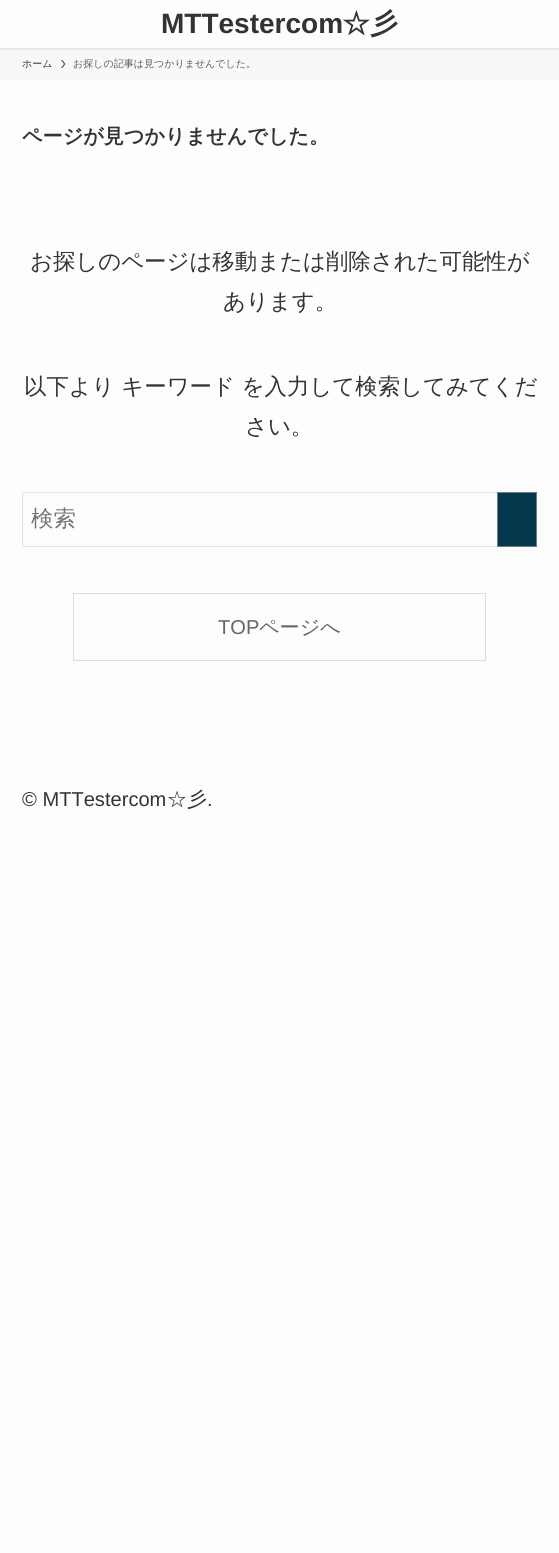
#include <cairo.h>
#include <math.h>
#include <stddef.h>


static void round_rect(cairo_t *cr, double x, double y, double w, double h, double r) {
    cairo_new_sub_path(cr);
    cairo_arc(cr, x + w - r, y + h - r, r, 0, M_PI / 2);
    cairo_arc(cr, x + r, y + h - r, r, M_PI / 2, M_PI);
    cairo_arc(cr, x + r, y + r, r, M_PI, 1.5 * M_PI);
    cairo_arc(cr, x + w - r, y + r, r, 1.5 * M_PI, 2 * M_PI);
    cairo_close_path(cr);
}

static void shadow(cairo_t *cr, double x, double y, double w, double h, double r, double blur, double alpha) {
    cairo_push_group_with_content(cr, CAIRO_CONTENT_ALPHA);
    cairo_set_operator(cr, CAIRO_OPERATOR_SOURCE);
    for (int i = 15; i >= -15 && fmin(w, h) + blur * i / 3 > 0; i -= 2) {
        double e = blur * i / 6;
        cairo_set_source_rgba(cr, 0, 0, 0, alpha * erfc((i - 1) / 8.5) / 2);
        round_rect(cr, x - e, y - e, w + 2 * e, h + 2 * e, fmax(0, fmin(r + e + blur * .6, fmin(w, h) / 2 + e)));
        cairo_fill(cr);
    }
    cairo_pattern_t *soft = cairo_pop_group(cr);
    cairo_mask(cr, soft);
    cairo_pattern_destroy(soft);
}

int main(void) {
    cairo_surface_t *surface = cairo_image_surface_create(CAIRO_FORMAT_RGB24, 559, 1553);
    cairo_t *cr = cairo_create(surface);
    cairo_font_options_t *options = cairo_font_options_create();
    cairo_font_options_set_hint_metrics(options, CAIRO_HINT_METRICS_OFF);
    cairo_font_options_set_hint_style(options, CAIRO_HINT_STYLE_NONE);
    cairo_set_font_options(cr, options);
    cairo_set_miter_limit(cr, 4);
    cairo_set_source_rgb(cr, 0.992, 0.992, 0.992);
    cairo_paint(cr);
    cairo_set_source_rgb(cr, 0.969, 0.969, 0.969);
    cairo_rectangle(cr, 0, 48, 559, 32);
    cairo_fill(cr);
    cairo_save(cr);
    cairo_rectangle(cr, 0, 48, 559, 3);
    cairo_clip(cr);
    cairo_set_source_rgb(cr, 0, 0, 0);
    shadow(cr, 0, 1, 559, 48, 0, 2, 0.12);
    cairo_restore(cr);
    cairo_select_font_face(cr, "Liberation Sans", CAIRO_FONT_SLANT_NORMAL, CAIRO_FONT_WEIGHT_BOLD);
    cairo_set_font_size(cr, 28);
    cairo_set_source_rgb(cr, 0.2, 0.2, 0.2);
    cairo_move_to(cr, 161, 33);
    cairo_show_text(cr, "MTTestercom");
    cairo_select_font_face(cr, "WenQuanYi Zen Hei", CAIRO_FONT_SLANT_NORMAL, CAIRO_FONT_WEIGHT_BOLD);
    cairo_move_to(cr, 342, 33);
    cairo_show_text(cr, "☆彡");
    cairo_select_font_face(cr, "WenQuanYi Zen Hei Medium", CAIRO_FONT_SLANT_NORMAL, CAIRO_FONT_WEIGHT_NORMAL);
    cairo_set_font_size(cr, 10);
    cairo_move_to(cr, 22, 67);
    cairo_show_text(cr, "ホーム");
    cairo_set_source_rgb(cr, 0.353, 0.353, 0.353);
    cairo_new_path(cr);
    cairo_move_to(cr, 62.5, 60);
    cairo_line_to(cr, 61, 60);
    cairo_line_to(cr, 64, 64);
    cairo_line_to(cr, 61, 68);
    cairo_line_to(cr, 62.5, 68);
    cairo_line_to(cr, 65.5, 64);
    cairo_close_path(cr);
    cairo_fill(cr);
    cairo_move_to(cr, 73, 67);
    cairo_show_text(cr, "お探しの記事は見つかりませんでした。");
    cairo_select_font_face(cr, "WenQuanYi Zen Hei", CAIRO_FONT_SLANT_NORMAL, CAIRO_FONT_WEIGHT_BOLD);
    cairo_set_font_size(cr, 20.1);
    cairo_set_source_rgb(cr, 0.2, 0.2, 0.2);
    cairo_move_to(cr, 22, 143);
    cairo_show_text(cr, "ページが見つかりませんでした。");
    cairo_select_font_face(cr, "WenQuanYi Zen Hei Medium", CAIRO_FONT_SLANT_NORMAL, CAIRO_FONT_WEIGHT_NORMAL);
    cairo_set_font_size(cr, 22.4);
    cairo_move_to(cr, 30, 269);
    cairo_show_text(cr, "お探しのページは移動または削除された可能性が");
    cairo_move_to(cr, 223, 309);
    cairo_show_text(cr, "あります。");
    cairo_move_to(cr, 24, 394);
    cairo_show_text(cr, "以下より キーワード を入力して検索してみてくだ");
    cairo_move_to(cr, 245, 434);
    cairo_show_text(cr, "さい。");
    cairo_rectangle(cr, 22.5, 492.5, 514, 54);
    cairo_set_source_rgb(cr, 0.89, 0.89, 0.89);
    cairo_set_line_width(cr, 1);
    cairo_stroke(cr);
    cairo_set_source_rgb(cr, 0.459, 0.459, 0.459);
    cairo_move_to(cr, 31, 526);
    cairo_show_text(cr, "検索");
    cairo_set_source_rgb(cr, 0.016, 0.22, 0.298);
    cairo_rectangle(cr, 497.5, 492.5, 39, 54);
    cairo_fill_preserve(cr);
    cairo_set_source_rgb(cr, 0.4, 0.502, 0.541);
    cairo_stroke(cr);
    cairo_rectangle(cr, 73.5, 593.5, 412, 67);
    cairo_set_source_rgb(cr, 0.863, 0.863, 0.863);
    cairo_stroke(cr);
    cairo_select_font_face(cr, "Liberation Sans", CAIRO_FONT_SLANT_NORMAL, CAIRO_FONT_WEIGHT_NORMAL);
    cairo_set_font_size(cr, 20.1);
    cairo_set_source_rgb(cr, 0.4, 0.4, 0.4);
    cairo_move_to(cr, 218, 634);
    cairo_show_text(cr, "TOP");
    cairo_select_font_face(cr, "WenQuanYi Zen Hei Medium", CAIRO_FONT_SLANT_NORMAL, CAIRO_FONT_WEIGHT_NORMAL);
    cairo_move_to(cr, 259, 634);
    cairo_show_text(cr, "ページへ");
    cairo_select_font_face(cr, "Liberation Sans", CAIRO_FONT_SLANT_NORMAL, CAIRO_FONT_WEIGHT_NORMAL);
    cairo_set_source_rgb(cr, 0.2, 0.2, 0.2);
    cairo_move_to(cr, 22, 806);
    cairo_show_text(cr, "© MTTestercom");
    cairo_select_font_face(cr, "WenQuanYi Zen Hei Medium", CAIRO_FONT_SLANT_NORMAL, CAIRO_FONT_WEIGHT_NORMAL);
    cairo_move_to(cr, 167, 806);
    cairo_show_text(cr, "☆彡");
    cairo_select_font_face(cr, "Liberation Sans", CAIRO_FONT_SLANT_NORMAL, CAIRO_FONT_WEIGHT_NORMAL);
    cairo_move_to(cr, 207, 806);
    cairo_show_text(cr, ".");
    cairo_surface_write_to_png(surface, "page.png");
    cairo_font_options_destroy(options);
    cairo_destroy(cr);
    cairo_surface_destroy(surface);
    return 0;
}
